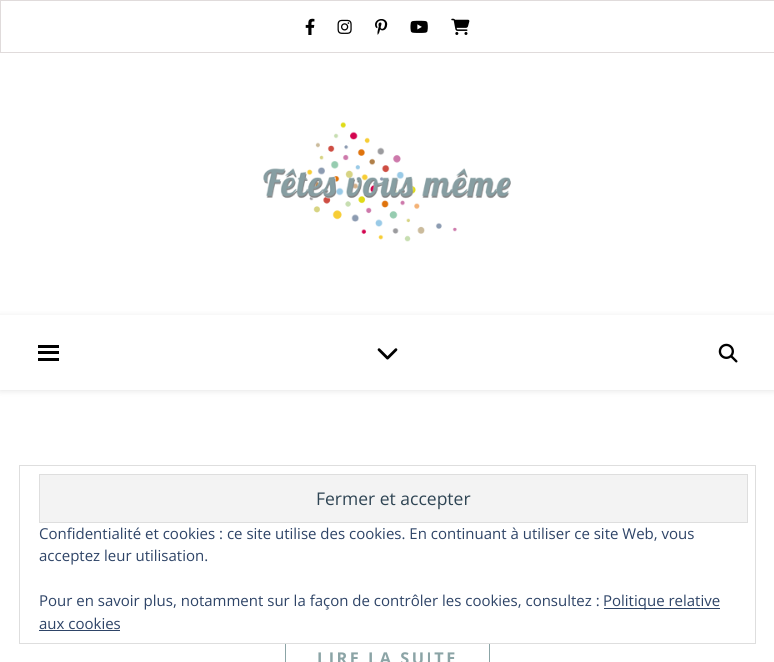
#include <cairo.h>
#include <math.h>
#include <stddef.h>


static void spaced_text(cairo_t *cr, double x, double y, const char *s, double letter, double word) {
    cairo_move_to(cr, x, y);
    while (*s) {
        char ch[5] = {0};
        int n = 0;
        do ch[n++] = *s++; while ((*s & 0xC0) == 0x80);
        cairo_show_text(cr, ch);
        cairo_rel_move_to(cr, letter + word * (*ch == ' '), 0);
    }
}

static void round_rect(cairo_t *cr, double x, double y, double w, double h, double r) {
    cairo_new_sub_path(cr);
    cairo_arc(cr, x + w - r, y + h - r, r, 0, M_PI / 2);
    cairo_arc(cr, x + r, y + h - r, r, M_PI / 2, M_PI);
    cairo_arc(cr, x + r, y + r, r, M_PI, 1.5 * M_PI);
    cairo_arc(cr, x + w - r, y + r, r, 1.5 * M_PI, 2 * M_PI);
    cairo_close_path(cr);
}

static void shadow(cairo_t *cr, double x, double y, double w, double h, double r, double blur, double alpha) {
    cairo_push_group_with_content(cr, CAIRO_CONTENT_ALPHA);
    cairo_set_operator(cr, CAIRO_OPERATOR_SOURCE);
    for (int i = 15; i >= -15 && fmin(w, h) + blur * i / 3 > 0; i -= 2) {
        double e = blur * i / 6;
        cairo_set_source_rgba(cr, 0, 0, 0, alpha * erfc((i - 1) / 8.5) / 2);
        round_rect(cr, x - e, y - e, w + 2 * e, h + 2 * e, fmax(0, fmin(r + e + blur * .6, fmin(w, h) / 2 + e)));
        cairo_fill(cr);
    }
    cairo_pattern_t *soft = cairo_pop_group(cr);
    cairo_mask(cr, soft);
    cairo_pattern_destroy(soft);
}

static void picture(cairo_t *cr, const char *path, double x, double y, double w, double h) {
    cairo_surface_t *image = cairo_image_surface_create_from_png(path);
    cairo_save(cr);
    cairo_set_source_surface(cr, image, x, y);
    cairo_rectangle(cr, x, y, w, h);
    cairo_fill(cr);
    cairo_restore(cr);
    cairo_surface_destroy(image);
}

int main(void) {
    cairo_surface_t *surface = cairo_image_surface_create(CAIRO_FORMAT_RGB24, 774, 662);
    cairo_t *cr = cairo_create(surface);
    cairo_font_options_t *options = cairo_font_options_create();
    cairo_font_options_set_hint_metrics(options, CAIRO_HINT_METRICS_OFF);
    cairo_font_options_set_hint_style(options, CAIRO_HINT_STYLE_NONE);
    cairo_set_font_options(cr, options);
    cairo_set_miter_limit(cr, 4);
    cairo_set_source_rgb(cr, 1, 1, 1);
    cairo_paint(cr);
    cairo_rectangle(cr, 285.5, 633.5, 204, 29);
    cairo_set_source_rgb(cr, 0.545, 0.643, 0.651);
    cairo_set_line_width(cr, 1);
    cairo_stroke(cr);
    cairo_set_source_rgb(cr, 1, 1, 1);
    cairo_rectangle(cr, 285, 633, 205, 10);
    cairo_fill(cr);
    cairo_rectangle(cr, 19.5, 465.5, 736, 178);
    cairo_set_source_rgb(cr, 0.871, 0.871, 0.871);
    cairo_stroke(cr);
    cairo_set_source_rgb(cr, 0.953, 0.953, 0.953);
    cairo_rectangle(cr, 39.5, 474.5, 708, 48);
    cairo_fill_preserve(cr);
    cairo_set_source_rgb(cr, 0.871, 0.871, 0.871);
    cairo_stroke(cr);
    cairo_select_font_face(cr, "Open Sans", CAIRO_FONT_SLANT_NORMAL, CAIRO_FONT_WEIGHT_NORMAL);
    cairo_set_font_size(cr, 17.5);
    cairo_set_source_rgb(cr, 0.18, 0.267, 0.325);
    cairo_move_to(cr, 316, 505);
    cairo_show_text(cr, "Fermer et accepter");
    cairo_set_font_size(cr, 15);
    cairo_set_source_rgb(cr, 0.18, 0.267, 0.404);
    cairo_move_to(cr, 39, 539);
    cairo_show_text(cr, "Confidentialité et cookies : ce site utilise des cookies. En continuant à utiliser ce site Web, vous");
    cairo_move_to(cr, 39, 561);
    cairo_show_text(cr, "acceptez leur utilisation.");
    cairo_move_to(cr, 39, 606);
    cairo_show_text(cr, "Pour en savoir plus, notamment sur la façon de contrôler les cookies, consultez :");
    cairo_rectangle(cr, 604, 608, 116, 1);
    cairo_fill(cr);
    cairo_move_to(cr, 603, 606);
    cairo_show_text(cr, "Politique relative");
    cairo_move_to(cr, 39, 629);
    cairo_show_text(cr, "aux cookies");
    cairo_rectangle(cr, 39, 630, 81, 1);
    cairo_fill(cr);
    cairo_rectangle(cr, 0.5, 0.5, 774, 52);
    cairo_set_source_rgb(cr, 0.878, 0.859, 0.859);
    cairo_stroke(cr);
    picture(cr, "img1.png", 305, 18, 10, 17);
    picture(cr, "img2.png", 337, 19, 15, 15);
    picture(cr, "img3.png", 375, 19, 13, 16);
    picture(cr, "img4.png", 410, 20, 18, 13);
    picture(cr, "img5.png", 451, 18, 19, 17);
    picture(cr, "img6.png", 263, 122, 248, 120);
    cairo_save(cr);
    cairo_set_fill_rule(cr, CAIRO_FILL_RULE_EVEN_ODD);
    cairo_new_path(cr);
    cairo_move_to(cr, 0, 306);
    cairo_line_to(cr, 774, 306);
    cairo_line_to(cr, 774, 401);
    cairo_line_to(cr, 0, 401);
    cairo_close_path(cr);
    cairo_move_to(cr, 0, 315);
    cairo_line_to(cr, 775, 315);
    cairo_line_to(cr, 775, 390);
    cairo_line_to(cr, 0, 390);
    cairo_close_path(cr);
    cairo_clip(cr);
    cairo_set_source_rgb(cr, 0, 0, 0);
    shadow(cr, 0, 316, 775, 75, 0, 3, 0.1);
    cairo_restore(cr);
    cairo_set_source_rgb(cr, 0, 0, 0);
    cairo_rectangle(cr, 38, 345, 21, 3);
    cairo_fill(cr);
    cairo_rectangle(cr, 38, 351, 21, 3);
    cairo_fill(cr);
    cairo_rectangle(cr, 38, 358, 21, 3);
    cairo_fill(cr);
    picture(cr, "img7.png", 377, 348, 21, 12);
    picture(cr, "img8.png", 718, 343, 20, 20);
    cairo_select_font_face(cr, "Open Sans", CAIRO_FONT_SLANT_NORMAL, CAIRO_FONT_WEIGHT_BOLD);
    cairo_set_font_size(cr, 16.25);
    cairo_set_source_rgb(cr, 0.545, 0.643, 0.651);
    spaced_text(cr, 317, 664, "LIRE LA SUITE", 2.5, 0);
    cairo_surface_write_to_png(surface, "page.png");
    cairo_font_options_destroy(options);
    cairo_destroy(cr);
    cairo_surface_destroy(surface);
    return 0;
}
